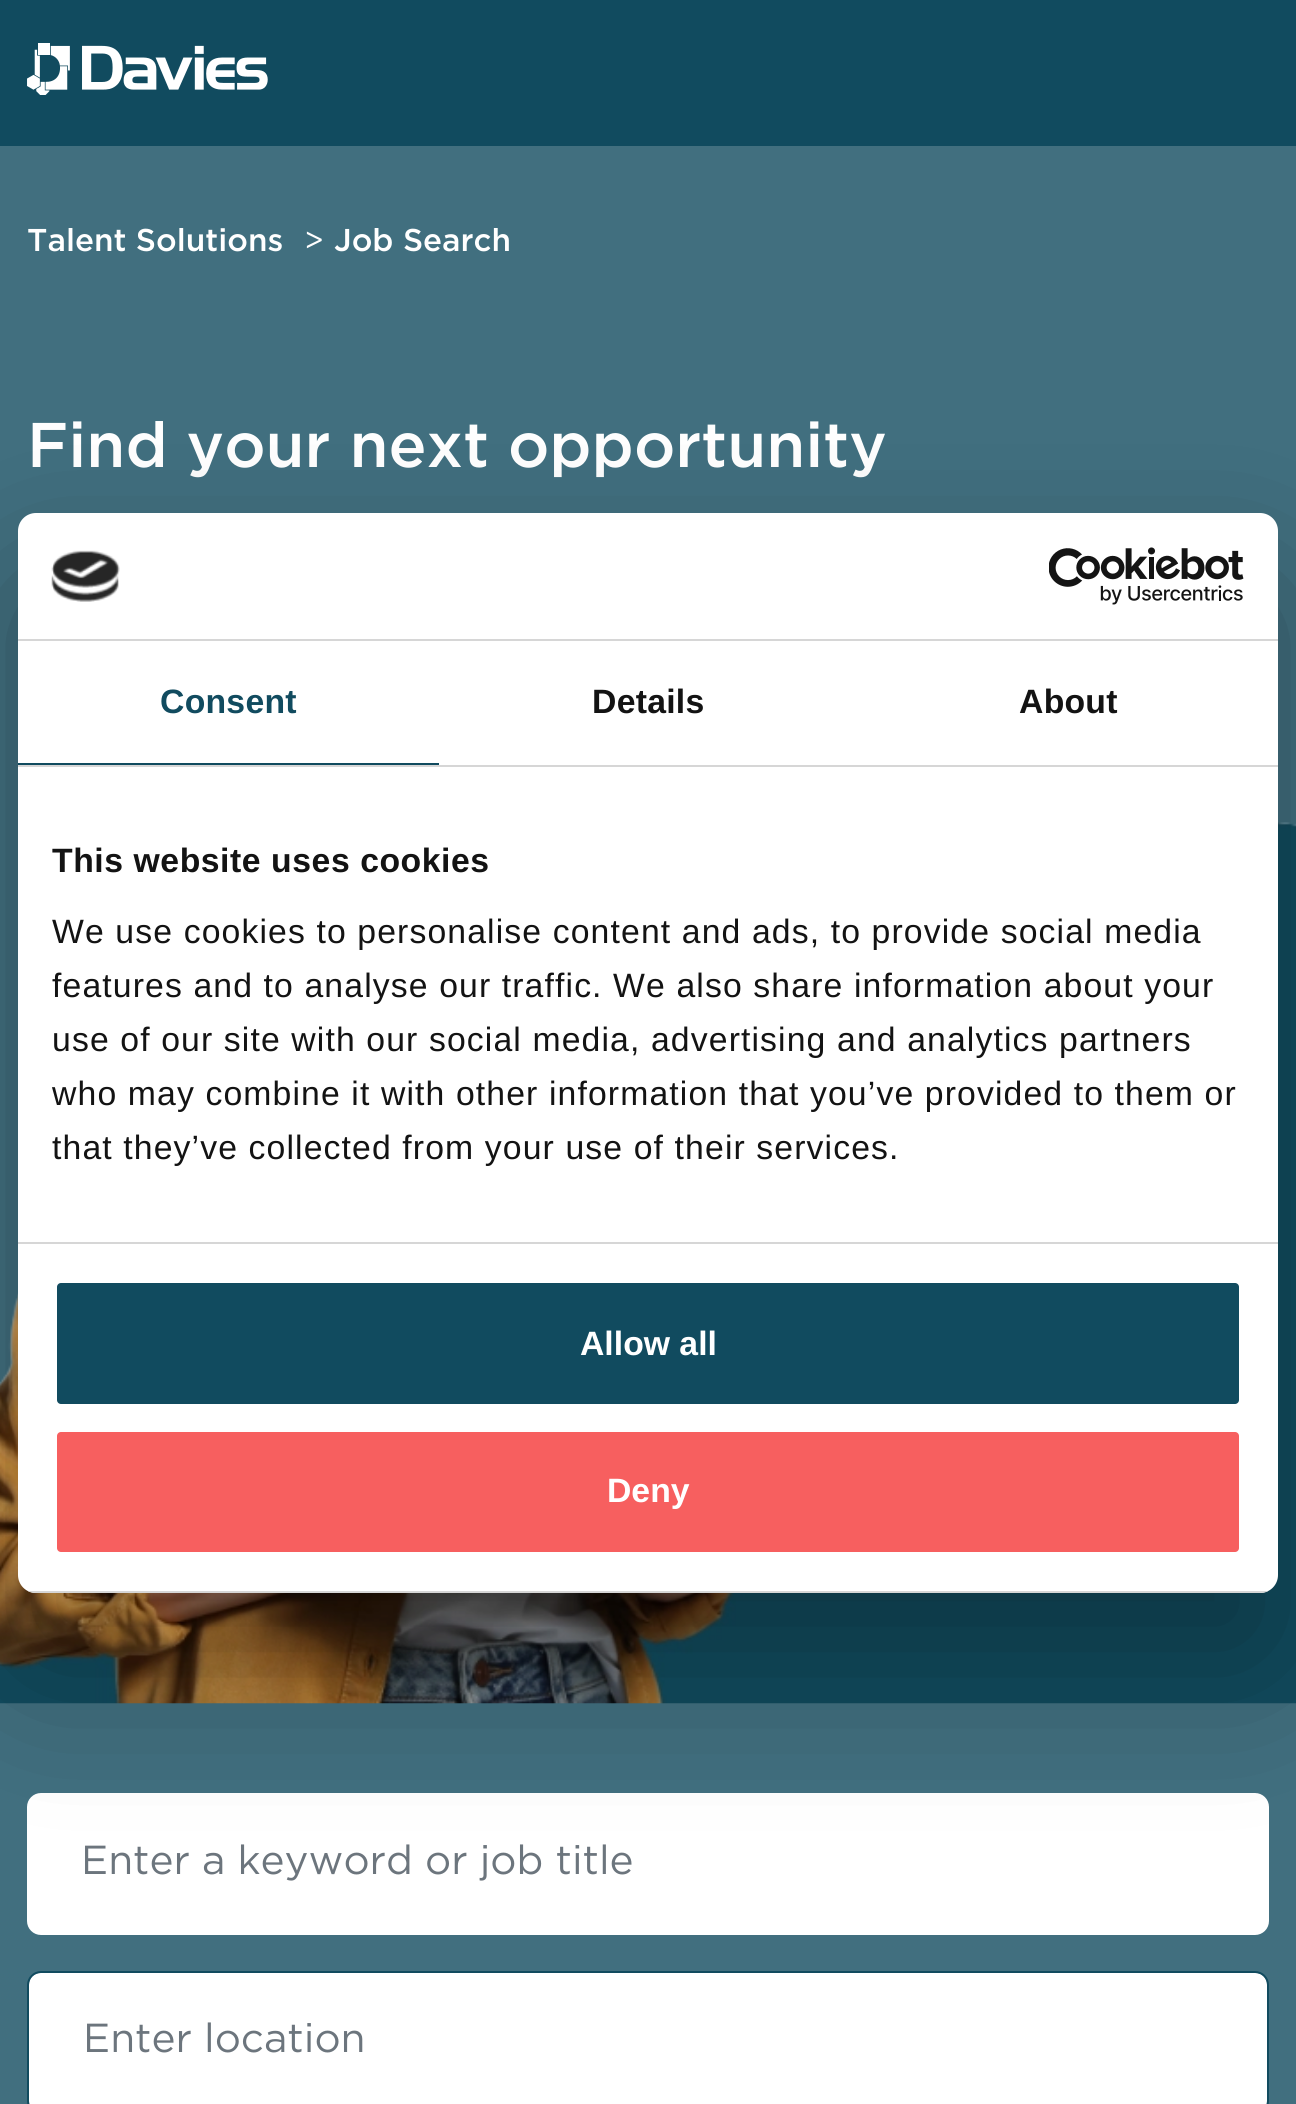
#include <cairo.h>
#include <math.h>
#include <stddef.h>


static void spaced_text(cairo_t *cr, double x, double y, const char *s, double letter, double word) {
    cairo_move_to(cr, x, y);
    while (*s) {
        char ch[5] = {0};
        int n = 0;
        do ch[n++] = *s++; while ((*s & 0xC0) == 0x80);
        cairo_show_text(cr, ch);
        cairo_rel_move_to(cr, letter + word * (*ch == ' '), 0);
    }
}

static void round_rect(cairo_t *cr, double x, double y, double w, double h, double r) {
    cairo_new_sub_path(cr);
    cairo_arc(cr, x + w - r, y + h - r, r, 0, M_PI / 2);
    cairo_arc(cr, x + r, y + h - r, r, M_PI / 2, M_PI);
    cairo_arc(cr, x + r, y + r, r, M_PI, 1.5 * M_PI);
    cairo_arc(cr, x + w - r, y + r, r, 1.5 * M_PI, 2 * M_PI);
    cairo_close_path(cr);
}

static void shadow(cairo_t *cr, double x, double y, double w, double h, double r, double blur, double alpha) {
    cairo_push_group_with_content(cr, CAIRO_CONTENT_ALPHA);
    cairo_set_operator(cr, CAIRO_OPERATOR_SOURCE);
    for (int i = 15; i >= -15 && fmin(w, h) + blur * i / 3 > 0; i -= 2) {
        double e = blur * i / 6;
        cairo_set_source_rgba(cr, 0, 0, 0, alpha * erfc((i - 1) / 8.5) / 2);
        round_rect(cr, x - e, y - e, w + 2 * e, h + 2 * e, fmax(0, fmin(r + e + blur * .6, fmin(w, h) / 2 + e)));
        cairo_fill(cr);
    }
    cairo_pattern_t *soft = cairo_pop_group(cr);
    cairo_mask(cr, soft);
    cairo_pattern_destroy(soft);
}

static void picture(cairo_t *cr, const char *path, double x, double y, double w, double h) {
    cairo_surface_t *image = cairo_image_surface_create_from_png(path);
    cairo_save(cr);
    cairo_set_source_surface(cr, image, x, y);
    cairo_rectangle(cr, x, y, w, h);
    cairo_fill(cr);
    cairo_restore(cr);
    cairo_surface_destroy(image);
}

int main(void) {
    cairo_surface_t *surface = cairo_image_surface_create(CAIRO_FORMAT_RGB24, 1296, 2104);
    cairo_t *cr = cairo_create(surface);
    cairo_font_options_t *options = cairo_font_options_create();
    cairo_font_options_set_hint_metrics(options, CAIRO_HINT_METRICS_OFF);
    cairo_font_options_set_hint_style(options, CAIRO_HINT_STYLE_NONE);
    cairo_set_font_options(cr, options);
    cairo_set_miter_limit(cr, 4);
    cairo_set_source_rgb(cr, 0.067, 0.294, 0.373);
    cairo_paint(cr);
    picture(cr, "img1.png", 27, 43, 241, 52);
    cairo_set_source_rgb(cr, 0.255, 0.435, 0.498);
    cairo_rectangle(cr, 0, 146, 1296, 1958);
    cairo_fill(cr);
    cairo_select_font_face(cr, "Gotham Medium", CAIRO_FONT_SLANT_NORMAL, CAIRO_FONT_WEIGHT_NORMAL);
    cairo_set_font_size(cr, 31.5);
    cairo_set_source_rgb(cr, 1, 1, 1);
    cairo_move_to(cr, 27, 251);
    cairo_show_text(cr, "Talent Solutions");
    cairo_select_font_face(cr, "Gotham", CAIRO_FONT_SLANT_NORMAL, CAIRO_FONT_WEIGHT_NORMAL);
    cairo_move_to(cr, 304, 251);
    cairo_show_text(cr, ">");
    cairo_select_font_face(cr, "Gotham Medium", CAIRO_FONT_SLANT_NORMAL, CAIRO_FONT_WEIGHT_NORMAL);
    cairo_move_to(cr, 334, 251);
    cairo_show_text(cr, "Job Search");
    cairo_set_font_size(cr, 63);
    cairo_move_to(cr, 27, 467);
    cairo_show_text(cr, "Find your next opportunity");
    picture(cr, "img2.png", 0, 822, 1296, 882);
    round_rect(cr, 27, 1793, 1242, 142, 14);
    cairo_fill(cr);
    cairo_select_font_face(cr, "Gotham", CAIRO_FONT_SLANT_NORMAL, CAIRO_FONT_WEIGHT_NORMAL);
    cairo_set_font_size(cr, 40.5);
    cairo_set_source_rgb(cr, 0.424, 0.459, 0.49);
    cairo_move_to(cr, 81, 1874);
    cairo_show_text(cr, "Enter a keyword or job title");
    cairo_set_source_rgb(cr, 1, 1, 1);
    round_rect(cr, 29, 1973, 1238, 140, 11);
    cairo_fill(cr);
    round_rect(cr, 28, 1972, 1240, 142, 13);
    cairo_set_source_rgb(cr, 0.067, 0.294, 0.373);
    cairo_stroke(cr);
    cairo_set_source_rgb(cr, 0.424, 0.459, 0.49);
    cairo_move_to(cr, 83, 2052);
    cairo_show_text(cr, "Enter location");
    cairo_set_source_rgb(cr, 0, 0, 0);
    shadow(cr, 18, 585, 1260, 1080, 18, 76.5, 0.3);
    cairo_set_source_rgb(cr, 1, 1, 1);
    round_rect(cr, 18, 513, 1260, 1080, 18);
    cairo_fill(cr);
    cairo_set_source_rgb(cr, 0.839, 0.839, 0.839);
    cairo_rectangle(cr, 18, 639, 1260, 2);
    cairo_fill(cr);
    picture(cr, "img3.png", 51, 550, 69, 52);
    picture(cr, "img4.png", 1049, 547, 195, 58);
    cairo_rectangle(cr, 18, 765, 1260, 2);
    cairo_fill(cr);
    cairo_set_source_rgb(cr, 0.067, 0.294, 0.373);
    cairo_rectangle(cr, 18, 763, 421, 2);
    cairo_fill(cr);
    cairo_select_font_face(cr, "Liberation Sans", CAIRO_FONT_SLANT_NORMAL, CAIRO_FONT_WEIGHT_BOLD);
    cairo_set_font_size(cr, 33.75);
    spaced_text(cr, 160, 713, "Consent", 0.25, 0);
    cairo_set_source_rgb(cr, 0.078, 0.078, 0.078);
    spaced_text(cr, 592, 713, "Details", 0.25, 0);
    spaced_text(cr, 1019, 713, "About", 0.25, 0);
    cairo_set_source_rgb(cr, 0.839, 0.839, 0.839);
    cairo_rectangle(cr, 18, 1242, 1260, 2);
    cairo_fill(cr);
    cairo_set_source_rgb(cr, 0.078, 0.078, 0.078);
    spaced_text(cr, 52, 872, "This website uses cookies", 0.55, 0);
    cairo_select_font_face(cr, "Liberation Sans", CAIRO_FONT_SLANT_NORMAL, CAIRO_FONT_WEIGHT_NORMAL);
    spaced_text(cr, 52, 943, "We use cookies to personalise content and ads, to provide social media", 1.12, 0);
    spaced_text(cr, 52, 997, "features and to analyse our traffic. We also share information about your", 1.12, 0);
    spaced_text(cr, 52, 1051, "use of our site with our social media, advertising and analytics partners", 1.12, 0);
    spaced_text(cr, 52, 1105, "who may combine it with other information that you’ve provided to them or", 1.12, 0);
    spaced_text(cr, 52, 1159, "that they’ve collected from your use of their services.", 1.12, 0);
    cairo_save(cr);
    round_rect(cr, 18, 513, 1260, 1080, 18);
    cairo_clip(cr);
    cairo_set_source_rgb(cr, 0.839, 0.839, 0.839);
    cairo_rectangle(cr, 28, 1591, 1240, 2);
    cairo_fill(cr);
    cairo_restore(cr);
    cairo_set_source_rgb(cr, 0.067, 0.294, 0.373);
    round_rect(cr, 54.5, 1280.5, 1187, 126, 6.5);
    cairo_fill_preserve(cr);
    cairo_set_source_rgb(cr, 1, 1, 1);
    cairo_set_line_width(cr, 5);
    cairo_stroke(cr);
    cairo_select_font_face(cr, "Liberation Sans", CAIRO_FONT_SLANT_NORMAL, CAIRO_FONT_WEIGHT_BOLD);
    cairo_move_to(cr, 580, 1355);
    cairo_show_text(cr, "Allow all");
    cairo_set_source_rgb(cr, 0.965, 0.373, 0.373);
    round_rect(cr, 54.5, 1429.5, 1187, 125, 6.5);
    cairo_fill_preserve(cr);
    cairo_set_source_rgb(cr, 1, 1, 1);
    cairo_stroke(cr);
    cairo_move_to(cr, 607, 1502);
    cairo_show_text(cr, "Deny");
    cairo_surface_write_to_png(surface, "page.png");
    cairo_font_options_destroy(options);
    cairo_destroy(cr);
    cairo_surface_destroy(surface);
    return 0;
}
